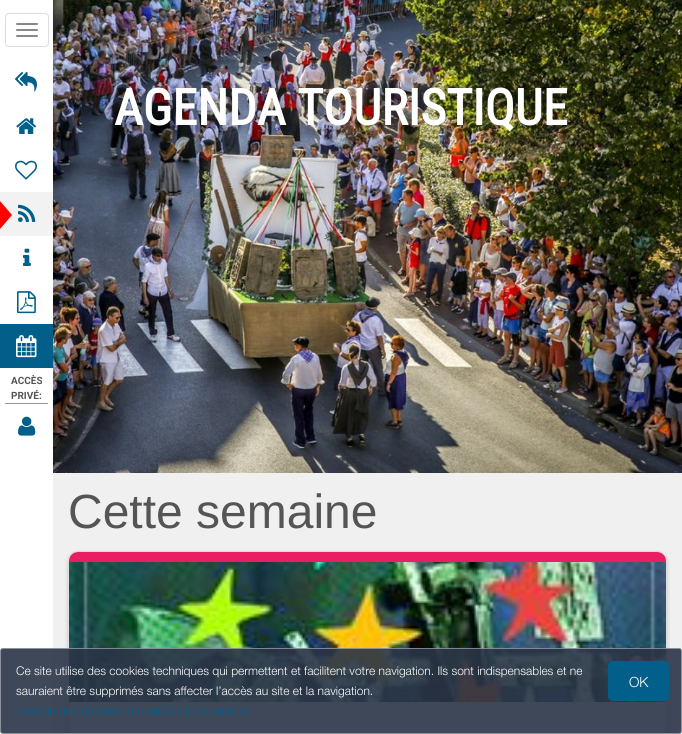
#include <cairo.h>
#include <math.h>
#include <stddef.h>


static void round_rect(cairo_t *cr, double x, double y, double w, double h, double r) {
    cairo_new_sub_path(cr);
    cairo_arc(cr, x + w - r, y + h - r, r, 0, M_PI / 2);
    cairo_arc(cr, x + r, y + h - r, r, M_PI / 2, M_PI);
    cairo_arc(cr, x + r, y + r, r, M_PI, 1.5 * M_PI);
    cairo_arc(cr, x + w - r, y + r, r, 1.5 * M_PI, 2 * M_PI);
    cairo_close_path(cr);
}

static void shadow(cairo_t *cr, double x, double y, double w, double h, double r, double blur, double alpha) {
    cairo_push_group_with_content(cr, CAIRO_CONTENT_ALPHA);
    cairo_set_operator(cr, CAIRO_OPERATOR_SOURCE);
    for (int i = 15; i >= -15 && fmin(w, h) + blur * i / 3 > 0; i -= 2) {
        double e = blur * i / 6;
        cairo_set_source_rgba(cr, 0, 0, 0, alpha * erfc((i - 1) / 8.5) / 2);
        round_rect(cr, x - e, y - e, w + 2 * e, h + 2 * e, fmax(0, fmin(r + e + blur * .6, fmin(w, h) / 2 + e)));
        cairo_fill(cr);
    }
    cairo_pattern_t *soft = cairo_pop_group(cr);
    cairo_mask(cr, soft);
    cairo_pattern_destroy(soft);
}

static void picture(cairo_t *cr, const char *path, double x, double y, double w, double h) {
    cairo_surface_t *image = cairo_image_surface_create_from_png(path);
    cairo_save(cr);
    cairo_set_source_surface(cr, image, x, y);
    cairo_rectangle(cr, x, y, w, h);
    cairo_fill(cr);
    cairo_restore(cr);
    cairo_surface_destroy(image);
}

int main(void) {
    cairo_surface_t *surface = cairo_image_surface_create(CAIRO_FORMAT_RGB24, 682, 734);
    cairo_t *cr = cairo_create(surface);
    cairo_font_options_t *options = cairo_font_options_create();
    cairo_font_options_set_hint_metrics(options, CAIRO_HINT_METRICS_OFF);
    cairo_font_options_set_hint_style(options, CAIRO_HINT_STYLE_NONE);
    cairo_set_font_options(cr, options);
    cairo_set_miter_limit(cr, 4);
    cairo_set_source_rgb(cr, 1, 1, 1);
    cairo_paint(cr);
    picture(cr, "img1.png", 53, 0, 629, 473);
    cairo_select_font_face(cr, "Roboto Condensed", CAIRO_FONT_SLANT_NORMAL, CAIRO_FONT_WEIGHT_BOLD);
    cairo_set_font_size(cr, 50);
    cairo_set_source_rgb(cr, 1, 1, 1);
    cairo_move_to(cr, 114, 125);
    cairo_show_text(cr, "AGENDA TOURISTIQUE");
    cairo_set_source_rgb(cr, 0.941, 0.941, 0.941);
    cairo_rectangle(cr, 53, 473, 629, 261);
    cairo_fill(cr);
    cairo_select_font_face(cr, "Liberation Sans", CAIRO_FONT_SLANT_NORMAL, CAIRO_FONT_WEIGHT_NORMAL);
    cairo_set_font_size(cr, 48);
    cairo_set_source_rgb(cr, 0.333, 0.333, 0.333);
    cairo_move_to(cr, 68, 528);
    cairo_show_text(cr, "Cette semaine");
    cairo_set_source_rgb(cr, 0, 0, 0);
    shadow(cr, 68, 553, 599, 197, 10, 2, 0.2);
    cairo_set_source_rgb(cr, 1, 1, 1);
    round_rect(cr, 68.5, 551.5, 598, 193, 9.5);
    cairo_fill_preserve(cr);
    cairo_set_source_rgb(cr, 0.867, 0.867, 0.867);
    cairo_set_line_width(cr, 1);
    cairo_stroke(cr);
    cairo_set_source_rgb(cr, 0.914, 0.118, 0.388);
    cairo_new_path(cr);
    cairo_move_to(cr, 78, 552);
    cairo_line_to(cr, 657, 552);
    cairo_curve_to(cr, 662, 552, 666, 556, 666, 561);
    cairo_line_to(cr, 666, 562);
    cairo_line_to(cr, 69, 562);
    cairo_line_to(cr, 69, 561);
    cairo_curve_to(cr, 69, 556, 73, 552, 78, 552);
    cairo_close_path(cr);
    cairo_fill(cr);
    picture(cr, "img2.png", 69, 562, 597, 140);
    cairo_set_source_rgba(cr, 0.169, 0.208, 0.278, 0.9);
    round_rect(cr, 0, 648, 682, 86, 3);
    cairo_fill(cr);
    round_rect(cr, 0.5, 648.5, 681, 85, 2.5);
    cairo_set_source_rgba(cr, 1, 1, 1, 0.4);
    cairo_stroke(cr);
    cairo_select_font_face(cr, "Helvetica Neue Light", CAIRO_FONT_SLANT_NORMAL, CAIRO_FONT_WEIGHT_NORMAL);
    cairo_set_font_size(cr, 12);
    cairo_set_source_rgb(cr, 1, 1, 1);
    cairo_move_to(cr, 16, 675);
    cairo_show_text(cr, "Ce site utilise des cookies techniques qui permettent et facilitent votre navigation. Ils sont indispensables et ne");
    cairo_set_source_rgb(cr, 0.008, 0.373, 0.541);
    round_rect(cr, 608, 661, 61, 40, 5);
    cairo_fill(cr);
    cairo_set_font_size(cr, 14);
    cairo_set_source_rgb(cr, 1, 1, 1);
    cairo_move_to(cr, 629, 687);
    cairo_show_text(cr, "OK");
    cairo_set_font_size(cr, 12);
    cairo_move_to(cr, 16, 695);
    cairo_show_text(cr, "sauraient être supprimés sans affecter l’accès au site et la navigation.");
    cairo_set_source_rgb(cr, 0.008, 0.373, 0.541);
    cairo_move_to(cr, 16, 715);
    cairo_show_text(cr, "Gestion des cookies et données personnelles");
    round_rect(cr, 5.5, 13.5, 43, 33, 3.5);
    cairo_set_source_rgb(cr, 0.867, 0.867, 0.867);
    cairo_stroke(cr);
    cairo_set_source_rgb(cr, 0.533, 0.533, 0.533);
    round_rect(cr, 16, 23, 22, 2, 1);
    cairo_fill(cr);
    round_rect(cr, 16, 29, 22, 2, 1);
    cairo_fill(cr);
    round_rect(cr, 16, 35, 22, 2, 1);
    cairo_fill(cr);
    picture(cr, "img3.png", 15, 71, 22, 21);
    picture(cr, "img4.png", 16, 118, 21, 16);
    picture(cr, "img5.png", 15, 160, 22, 20);
    cairo_set_source_rgb(cr, 0.949, 0.949, 0.949);
    cairo_rectangle(cr, 0, 192, 53, 44);
    cairo_fill(cr);
    cairo_set_source_rgb(cr, 1, 0, 0);
    cairo_new_path(cr);
    cairo_move_to(cr, 0, 229);
    cairo_line_to(cr, 0, 201);
    cairo_line_to(cr, 12, 215);
    cairo_close_path(cr);
    cairo_fill(cr);
    picture(cr, "img6.png", 18, 204, 18, 18);
    picture(cr, "img7.png", 23, 248, 8, 18);
    picture(cr, "img8.png", 17, 291, 19, 23);
    cairo_set_source_rgb(cr, 0.008, 0.373, 0.541);
    cairo_rectangle(cr, 0, 324, 53, 44);
    cairo_fill(cr);
    picture(cr, "img9.png", 16, 335, 21, 23);
    cairo_set_source_rgb(cr, 0.608, 0.588, 0.588);
    cairo_rectangle(cr, 5, 403, 43, 1);
    cairo_fill(cr);
    cairo_select_font_face(cr, "Roboto", CAIRO_FONT_SLANT_NORMAL, CAIRO_FONT_WEIGHT_BOLD);
    cairo_set_font_size(cr, 10);
    cairo_set_source_rgb(cr, 0.333, 0.333, 0.333);
    cairo_move_to(cr, 11, 384);
    cairo_show_text(cr, "ACCÈS");
    cairo_move_to(cr, 11, 399);
    cairo_show_text(cr, "PRIVÉ:");
    picture(cr, "img10.png", 18, 416, 18, 20);
    cairo_surface_write_to_png(surface, "page.png");
    cairo_font_options_destroy(options);
    cairo_destroy(cr);
    cairo_surface_destroy(surface);
    return 0;
}
